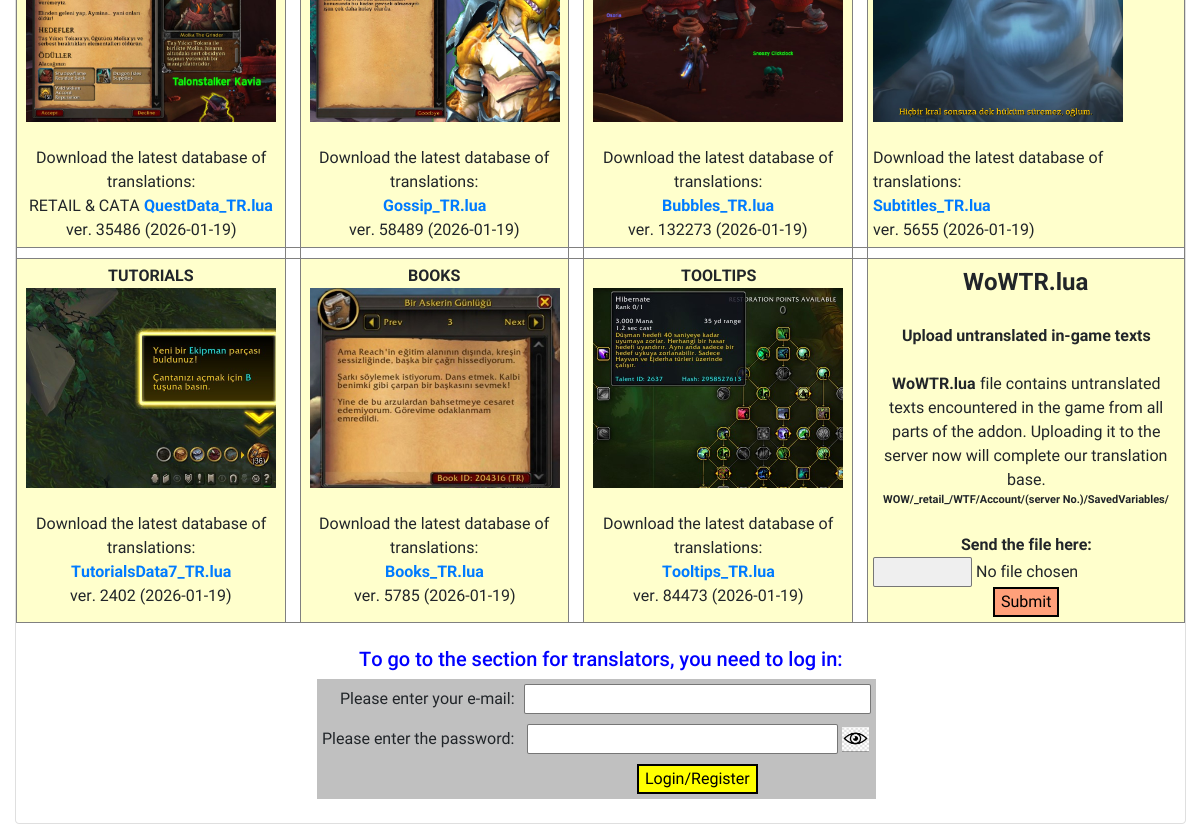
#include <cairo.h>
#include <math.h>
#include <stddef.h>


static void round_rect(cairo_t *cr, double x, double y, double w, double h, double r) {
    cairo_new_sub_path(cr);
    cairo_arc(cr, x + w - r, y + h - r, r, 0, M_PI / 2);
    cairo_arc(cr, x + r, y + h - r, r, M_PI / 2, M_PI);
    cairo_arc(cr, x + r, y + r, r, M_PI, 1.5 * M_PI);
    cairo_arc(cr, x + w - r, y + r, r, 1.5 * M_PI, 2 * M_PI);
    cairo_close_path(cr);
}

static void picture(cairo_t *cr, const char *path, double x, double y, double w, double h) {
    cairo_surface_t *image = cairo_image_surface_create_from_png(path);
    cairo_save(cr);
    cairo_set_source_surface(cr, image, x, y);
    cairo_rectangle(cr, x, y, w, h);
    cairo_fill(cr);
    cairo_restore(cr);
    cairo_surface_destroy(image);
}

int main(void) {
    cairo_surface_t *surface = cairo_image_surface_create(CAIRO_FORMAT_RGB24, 1201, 839);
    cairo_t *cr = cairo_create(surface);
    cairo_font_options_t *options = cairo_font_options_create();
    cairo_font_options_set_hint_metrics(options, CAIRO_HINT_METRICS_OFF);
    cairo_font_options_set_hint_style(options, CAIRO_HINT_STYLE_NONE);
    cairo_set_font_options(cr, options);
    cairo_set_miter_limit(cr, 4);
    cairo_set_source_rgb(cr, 1, 1, 1);
    cairo_paint(cr);
    round_rect(cr, 15.5, -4.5, 1170, 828, 3.5);
    cairo_set_source_rgb(cr, 0.875, 0.875, 0.875);
    cairo_set_line_width(cr, 1);
    cairo_stroke(cr);
    cairo_set_source_rgb(cr, 1, 1, 0.8);
    cairo_rectangle(cr, 17, 0, 1167, 622);
    cairo_fill(cr);
    cairo_set_source_rgb(cr, 0.502, 0.502, 0.502);
    cairo_rectangle(cr, 1184, 0, 1, 623);
    cairo_fill(cr);
    cairo_rectangle(cr, 16, 622, 1169, 1);
    cairo_fill(cr);
    cairo_rectangle(cr, 16, 0, 1, 623);
    cairo_fill(cr);
    picture(cr, "img1.png", 26, 0, 250, 122);
    cairo_select_font_face(cr, "Roboto", CAIRO_FONT_SLANT_NORMAL, CAIRO_FONT_WEIGHT_NORMAL);
    cairo_set_font_size(cr, 16);
    cairo_set_source_rgb(cr, 0.129, 0.145, 0.161);
    cairo_move_to(cr, 36, 163);
    cairo_show_text(cr, "Download the latest database of");
    cairo_move_to(cr, 107, 187);
    cairo_show_text(cr, "translations:");
    cairo_move_to(cr, 29, 211);
    cairo_show_text(cr, "RETAIL & CATA");
    cairo_select_font_face(cr, "Roboto", CAIRO_FONT_SLANT_NORMAL, CAIRO_FONT_WEIGHT_BOLD);
    cairo_set_source_rgb(cr, 0, 0.482, 1);
    cairo_move_to(cr, 144, 211);
    cairo_show_text(cr, "QuestData_TR.lua");
    cairo_select_font_face(cr, "Roboto", CAIRO_FONT_SLANT_NORMAL, CAIRO_FONT_WEIGHT_NORMAL);
    cairo_set_source_rgb(cr, 0.129, 0.145, 0.161);
    cairo_move_to(cr, 66, 235);
    cairo_show_text(cr, "ver. 35486 (2026-01-19)");
    cairo_set_source_rgb(cr, 1, 1, 1);
    cairo_rectangle(cr, 286, 0, 14, 247);
    cairo_fill(cr);
    cairo_set_source_rgb(cr, 0.502, 0.502, 0.502);
    cairo_rectangle(cr, 867, 247, 318, 1);
    cairo_fill(cr);
    cairo_set_source_rgb(cr, 1, 1, 1);
    cairo_rectangle(cr, 17, 248, 1167, 10);
    cairo_fill(cr);
    cairo_set_source_rgb(cr, 0.502, 0.502, 0.502);
    cairo_rectangle(cr, 867, 258, 318, 1);
    cairo_fill(cr);
    cairo_rectangle(cr, 867, 258, 1, 365);
    cairo_fill(cr);
    cairo_rectangle(cr, 852, 258, 16, 1);
    cairo_fill(cr);
    cairo_rectangle(cr, 867, 247, 1, 12);
    cairo_fill(cr);
    cairo_rectangle(cr, 852, 247, 16, 1);
    cairo_fill(cr);
    cairo_rectangle(cr, 852, 258, 1, 365);
    cairo_fill(cr);
    cairo_rectangle(cr, 583, 258, 270, 1);
    cairo_fill(cr);
    cairo_rectangle(cr, 852, 247, 1, 12);
    cairo_fill(cr);
    cairo_rectangle(cr, 583, 247, 270, 1);
    cairo_fill(cr);
    cairo_rectangle(cr, 583, 258, 1, 365);
    cairo_fill(cr);
    cairo_rectangle(cr, 568, 258, 16, 1);
    cairo_fill(cr);
    cairo_rectangle(cr, 583, 247, 1, 12);
    cairo_fill(cr);
    cairo_rectangle(cr, 568, 247, 16, 1);
    cairo_fill(cr);
    cairo_rectangle(cr, 568, 258, 1, 365);
    cairo_fill(cr);
    cairo_rectangle(cr, 300, 258, 269, 1);
    cairo_fill(cr);
    cairo_rectangle(cr, 568, 247, 1, 12);
    cairo_fill(cr);
    cairo_rectangle(cr, 300, 247, 269, 1);
    cairo_fill(cr);
    cairo_rectangle(cr, 300, 258, 1, 365);
    cairo_fill(cr);
    cairo_rectangle(cr, 285, 258, 16, 1);
    cairo_fill(cr);
    cairo_rectangle(cr, 300, 247, 1, 12);
    cairo_fill(cr);
    cairo_rectangle(cr, 285, 247, 16, 1);
    cairo_fill(cr);
    cairo_rectangle(cr, 285, 258, 1, 365);
    cairo_fill(cr);
    cairo_rectangle(cr, 16, 258, 270, 1);
    cairo_fill(cr);
    cairo_rectangle(cr, 285, 247, 1, 12);
    cairo_fill(cr);
    cairo_rectangle(cr, 16, 247, 270, 1);
    cairo_fill(cr);
    cairo_rectangle(cr, 285, 0, 1, 248);
    cairo_fill(cr);
    cairo_rectangle(cr, 300, 0, 1, 248);
    cairo_fill(cr);
    picture(cr, "img2.png", 310, 0, 250, 122);
    cairo_set_source_rgb(cr, 0.129, 0.145, 0.161);
    cairo_move_to(cr, 319, 163);
    cairo_show_text(cr, "Download the latest database of");
    cairo_move_to(cr, 390, 187);
    cairo_show_text(cr, "translations:");
    cairo_select_font_face(cr, "Roboto", CAIRO_FONT_SLANT_NORMAL, CAIRO_FONT_WEIGHT_BOLD);
    cairo_set_source_rgb(cr, 0, 0.482, 1);
    cairo_move_to(cr, 383, 211);
    cairo_show_text(cr, "Gossip_TR.lua");
    cairo_select_font_face(cr, "Roboto", CAIRO_FONT_SLANT_NORMAL, CAIRO_FONT_WEIGHT_NORMAL);
    cairo_set_source_rgb(cr, 0.129, 0.145, 0.161);
    cairo_move_to(cr, 349, 235);
    cairo_show_text(cr, "ver. 58489 (2026-01-19)");
    cairo_set_source_rgb(cr, 1, 1, 1);
    cairo_rectangle(cr, 569, 0, 14, 247);
    cairo_fill(cr);
    cairo_set_source_rgb(cr, 0.502, 0.502, 0.502);
    cairo_rectangle(cr, 568, 0, 1, 248);
    cairo_fill(cr);
    cairo_rectangle(cr, 583, 0, 1, 248);
    cairo_fill(cr);
    picture(cr, "img3.png", 593, 0, 250, 122);
    cairo_set_source_rgb(cr, 0.129, 0.145, 0.161);
    cairo_move_to(cr, 603, 163);
    cairo_show_text(cr, "Download the latest database of");
    cairo_move_to(cr, 674, 187);
    cairo_show_text(cr, "translations:");
    cairo_select_font_face(cr, "Roboto", CAIRO_FONT_SLANT_NORMAL, CAIRO_FONT_WEIGHT_BOLD);
    cairo_set_source_rgb(cr, 0, 0.482, 1);
    cairo_move_to(cr, 662, 211);
    cairo_show_text(cr, "Bubbles_TR.lua");
    cairo_select_font_face(cr, "Roboto", CAIRO_FONT_SLANT_NORMAL, CAIRO_FONT_WEIGHT_NORMAL);
    cairo_set_source_rgb(cr, 0.129, 0.145, 0.161);
    cairo_move_to(cr, 628, 235);
    cairo_show_text(cr, "ver. 132273 (2026-01-19)");
    cairo_set_source_rgb(cr, 1, 1, 1);
    cairo_rectangle(cr, 853, 0, 14, 247);
    cairo_fill(cr);
    cairo_set_source_rgb(cr, 0.502, 0.502, 0.502);
    cairo_rectangle(cr, 852, 0, 1, 248);
    cairo_fill(cr);
    cairo_rectangle(cr, 867, 0, 1, 248);
    cairo_fill(cr);
    picture(cr, "img4.png", 873, 0, 250, 122);
    cairo_set_source_rgb(cr, 0.129, 0.145, 0.161);
    cairo_move_to(cr, 873, 163);
    cairo_show_text(cr, "Download the latest database of");
    cairo_move_to(cr, 873, 187);
    cairo_show_text(cr, "translations:");
    cairo_select_font_face(cr, "Roboto", CAIRO_FONT_SLANT_NORMAL, CAIRO_FONT_WEIGHT_BOLD);
    cairo_set_source_rgb(cr, 0, 0.482, 1);
    cairo_move_to(cr, 873, 211);
    cairo_show_text(cr, "Subtitles_TR.lua");
    cairo_select_font_face(cr, "Roboto", CAIRO_FONT_SLANT_NORMAL, CAIRO_FONT_WEIGHT_NORMAL);
    cairo_set_source_rgb(cr, 0.129, 0.145, 0.161);
    cairo_move_to(cr, 873, 235);
    cairo_show_text(cr, "ver. 5655 (2026-01-19)");
    cairo_select_font_face(cr, "Roboto", CAIRO_FONT_SLANT_NORMAL, CAIRO_FONT_WEIGHT_BOLD);
    cairo_move_to(cr, 108, 281);
    cairo_show_text(cr, "TUTORIALS");
    picture(cr, "img5.png", 26, 288, 250, 200);
    cairo_select_font_face(cr, "Roboto", CAIRO_FONT_SLANT_NORMAL, CAIRO_FONT_WEIGHT_NORMAL);
    cairo_move_to(cr, 36, 529);
    cairo_show_text(cr, "Download the latest database of");
    cairo_move_to(cr, 107, 553);
    cairo_show_text(cr, "translations:");
    cairo_select_font_face(cr, "Roboto", CAIRO_FONT_SLANT_NORMAL, CAIRO_FONT_WEIGHT_BOLD);
    cairo_set_source_rgb(cr, 0, 0.482, 1);
    cairo_move_to(cr, 71, 577);
    cairo_show_text(cr, "TutorialsData7_TR.lua");
    cairo_select_font_face(cr, "Roboto", CAIRO_FONT_SLANT_NORMAL, CAIRO_FONT_WEIGHT_NORMAL);
    cairo_set_source_rgb(cr, 0.129, 0.145, 0.161);
    cairo_move_to(cr, 70, 601);
    cairo_show_text(cr, "ver. 2402 (2026-01-19)");
    cairo_set_source_rgb(cr, 1, 1, 1);
    cairo_rectangle(cr, 286, 259, 14, 363);
    cairo_fill(cr);
    cairo_select_font_face(cr, "Roboto", CAIRO_FONT_SLANT_NORMAL, CAIRO_FONT_WEIGHT_BOLD);
    cairo_set_source_rgb(cr, 0.129, 0.145, 0.161);
    cairo_move_to(cr, 408, 281);
    cairo_show_text(cr, "BOOKS");
    picture(cr, "img6.png", 310, 288, 250, 200);
    cairo_select_font_face(cr, "Roboto", CAIRO_FONT_SLANT_NORMAL, CAIRO_FONT_WEIGHT_NORMAL);
    cairo_move_to(cr, 319, 529);
    cairo_show_text(cr, "Download the latest database of");
    cairo_move_to(cr, 390, 553);
    cairo_show_text(cr, "translations:");
    cairo_select_font_face(cr, "Roboto", CAIRO_FONT_SLANT_NORMAL, CAIRO_FONT_WEIGHT_BOLD);
    cairo_set_source_rgb(cr, 0, 0.482, 1);
    cairo_move_to(cr, 385, 577);
    cairo_show_text(cr, "Books_TR.lua");
    cairo_select_font_face(cr, "Roboto", CAIRO_FONT_SLANT_NORMAL, CAIRO_FONT_WEIGHT_NORMAL);
    cairo_set_source_rgb(cr, 0.129, 0.145, 0.161);
    cairo_move_to(cr, 354, 601);
    cairo_show_text(cr, "ver. 5785 (2026-01-19)");
    cairo_set_source_rgb(cr, 1, 1, 1);
    cairo_rectangle(cr, 569, 259, 14, 363);
    cairo_fill(cr);
    cairo_select_font_face(cr, "Roboto", CAIRO_FONT_SLANT_NORMAL, CAIRO_FONT_WEIGHT_BOLD);
    cairo_set_source_rgb(cr, 0.129, 0.145, 0.161);
    cairo_move_to(cr, 681, 281);
    cairo_show_text(cr, "TOOLTIPS");
    picture(cr, "img7.png", 593, 288, 250, 200);
    cairo_select_font_face(cr, "Roboto", CAIRO_FONT_SLANT_NORMAL, CAIRO_FONT_WEIGHT_NORMAL);
    cairo_move_to(cr, 603, 529);
    cairo_show_text(cr, "Download the latest database of");
    cairo_move_to(cr, 674, 553);
    cairo_show_text(cr, "translations:");
    cairo_select_font_face(cr, "Roboto", CAIRO_FONT_SLANT_NORMAL, CAIRO_FONT_WEIGHT_BOLD);
    cairo_set_source_rgb(cr, 0, 0.482, 1);
    cairo_move_to(cr, 662, 577);
    cairo_show_text(cr, "Tooltips_TR.lua");
    cairo_select_font_face(cr, "Roboto", CAIRO_FONT_SLANT_NORMAL, CAIRO_FONT_WEIGHT_NORMAL);
    cairo_set_source_rgb(cr, 0.129, 0.145, 0.161);
    cairo_move_to(cr, 633, 601);
    cairo_show_text(cr, "ver. 84473 (2026-01-19)");
    cairo_set_source_rgb(cr, 1, 1, 1);
    cairo_rectangle(cr, 853, 259, 14, 363);
    cairo_fill(cr);
    cairo_select_font_face(cr, "Roboto", CAIRO_FONT_SLANT_NORMAL, CAIRO_FONT_WEIGHT_BOLD);
    cairo_set_font_size(cr, 24);
    cairo_set_source_rgb(cr, 0.129, 0.145, 0.161);
    cairo_move_to(cr, 963, 290);
    cairo_show_text(cr, "WoWTR.lua");
    cairo_set_font_size(cr, 16);
    cairo_move_to(cr, 902, 341);
    cairo_show_text(cr, "Upload untranslated in-game texts");
    cairo_move_to(cr, 892, 389);
    cairo_show_text(cr, "WoWTR.lua");
    cairo_select_font_face(cr, "Roboto", CAIRO_FONT_SLANT_NORMAL, CAIRO_FONT_WEIGHT_NORMAL);
    cairo_move_to(cr, 980, 389);
    cairo_show_text(cr, "file contains untranslated");
    cairo_move_to(cr, 889, 413);
    cairo_show_text(cr, "texts encountered in the game from all");
    cairo_move_to(cr, 892, 437);
    cairo_show_text(cr, "parts of the addon. Uploading it to the");
    cairo_move_to(cr, 884, 461);
    cairo_show_text(cr, "server now will complete our translation");
    cairo_move_to(cr, 1007, 485);
    cairo_show_text(cr, "base.");
    cairo_select_font_face(cr, "Roboto", CAIRO_FONT_SLANT_NORMAL, CAIRO_FONT_WEIGHT_BOLD);
    cairo_set_font_size(cr, 11);
    cairo_move_to(cr, 883, 503);
    cairo_show_text(cr, "WOW/_retail_/WTF/Account/(server No.)/SavedVariables/");
    cairo_set_font_size(cr, 16);
    cairo_move_to(cr, 961, 550);
    cairo_show_text(cr, "Send the file here:");
    cairo_set_source_rgb(cr, 0.937, 0.937, 0.937);
    round_rect(cr, 873.5, 557.5, 98, 29, 1.5);
    cairo_fill_preserve(cr);
    cairo_set_source_rgb(cr, 0.463, 0.463, 0.463);
    cairo_stroke(cr);
    cairo_select_font_face(cr, "Roboto", CAIRO_FONT_SLANT_NORMAL, CAIRO_FONT_WEIGHT_NORMAL);
    cairo_set_source_rgb(cr, 0.129, 0.145, 0.161);
    cairo_move_to(cr, 976, 577);
    cairo_show_text(cr, "No file chosen");
    cairo_set_source_rgb(cr, 1, 0.627, 0.478);
    cairo_rectangle(cr, 994, 588, 64, 28);
    cairo_fill_preserve(cr);
    cairo_set_source_rgb(cr, 0, 0, 0);
    cairo_set_line_width(cr, 2);
    cairo_stroke(cr);
    cairo_move_to(cr, 1001, 607);
    cairo_show_text(cr, "Submit");
    cairo_select_font_face(cr, "Roboto Medium", CAIRO_FONT_SLANT_NORMAL, CAIRO_FONT_WEIGHT_NORMAL);
    cairo_set_font_size(cr, 20);
    cairo_set_source_rgb(cr, 0, 0, 1);
    cairo_move_to(cr, 359, 666);
    cairo_show_text(cr, "To go to the section for translators, you need to log in:");
    cairo_set_source_rgb(cr, 0.753, 0.753, 0.753);
    cairo_rectangle(cr, 317, 679, 559, 120);
    cairo_fill(cr);
    cairo_select_font_face(cr, "Roboto", CAIRO_FONT_SLANT_NORMAL, CAIRO_FONT_WEIGHT_NORMAL);
    cairo_set_font_size(cr, 16);
    cairo_set_source_rgb(cr, 0.129, 0.145, 0.161);
    cairo_move_to(cr, 340, 704);
    cairo_show_text(cr, "Please enter your e-mail:");
    cairo_set_source_rgb(cr, 1, 1, 1);
    round_rect(cr, 524.5, 684.5, 346, 29, 1.5);
    cairo_fill_preserve(cr);
    cairo_set_source_rgb(cr, 0.463, 0.463, 0.463);
    cairo_set_line_width(cr, 1);
    cairo_stroke(cr);
    cairo_set_source_rgb(cr, 0.129, 0.145, 0.161);
    cairo_move_to(cr, 322, 744);
    cairo_show_text(cr, "Please enter the password:");
    cairo_set_source_rgb(cr, 1, 1, 1);
    round_rect(cr, 527.5, 724.5, 310, 29, 1.5);
    cairo_fill_preserve(cr);
    cairo_set_source_rgb(cr, 0.463, 0.463, 0.463);
    cairo_stroke(cr);
    picture(cr, "img8.png", 842, 727, 27, 25);
    cairo_set_source_rgb(cr, 1, 1, 0);
    cairo_rectangle(cr, 638, 765, 119, 28);
    cairo_fill_preserve(cr);
    cairo_set_source_rgb(cr, 0, 0, 0);
    cairo_set_line_width(cr, 2);
    cairo_stroke(cr);
    cairo_move_to(cr, 645, 784);
    cairo_show_text(cr, "Login/Register");
    cairo_surface_write_to_png(surface, "page.png");
    cairo_font_options_destroy(options);
    cairo_destroy(cr);
    cairo_surface_destroy(surface);
    return 0;
}
